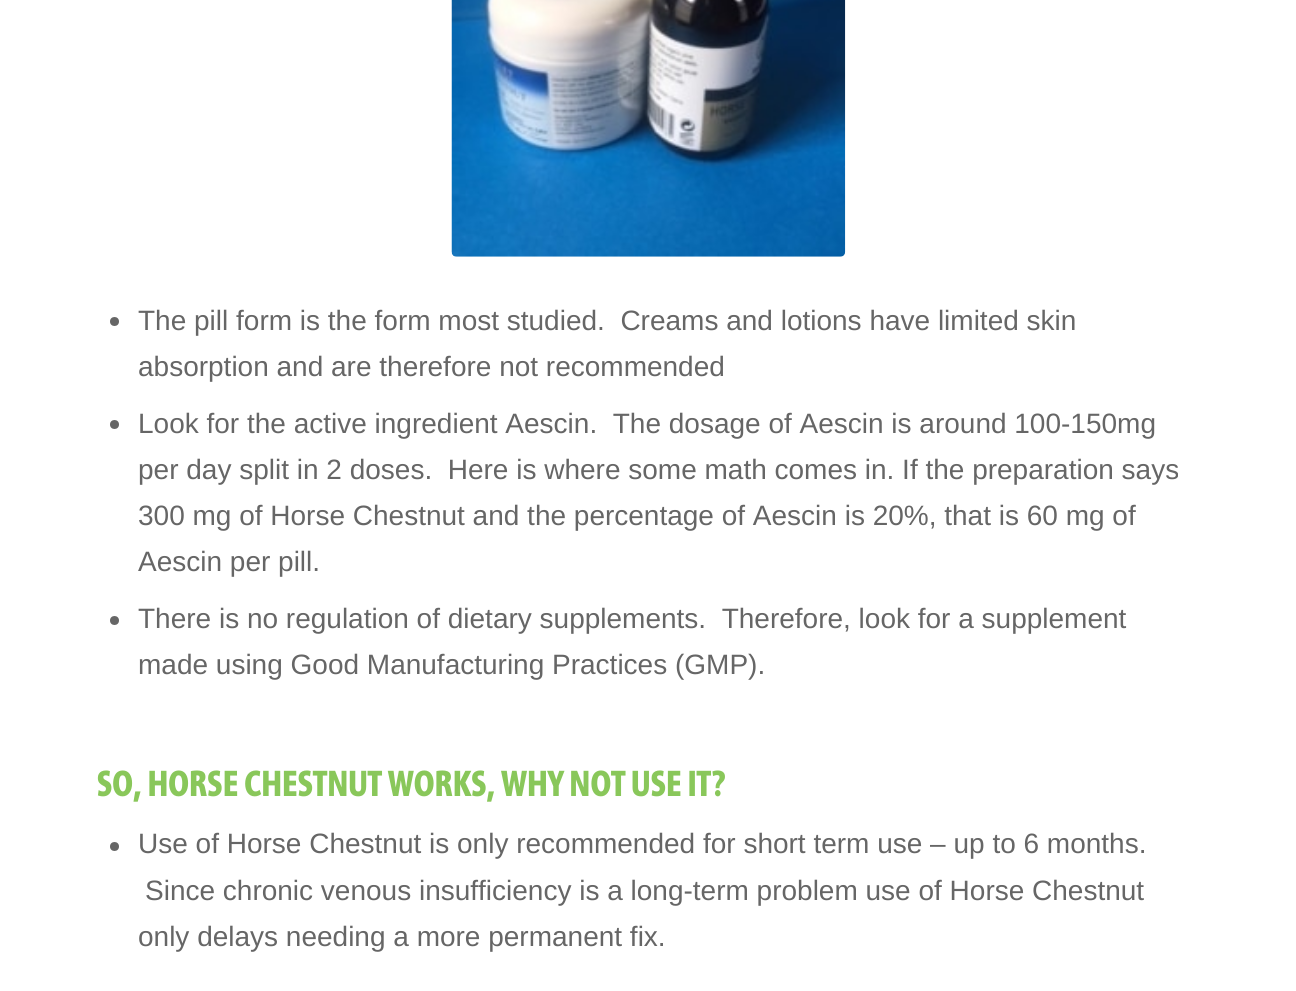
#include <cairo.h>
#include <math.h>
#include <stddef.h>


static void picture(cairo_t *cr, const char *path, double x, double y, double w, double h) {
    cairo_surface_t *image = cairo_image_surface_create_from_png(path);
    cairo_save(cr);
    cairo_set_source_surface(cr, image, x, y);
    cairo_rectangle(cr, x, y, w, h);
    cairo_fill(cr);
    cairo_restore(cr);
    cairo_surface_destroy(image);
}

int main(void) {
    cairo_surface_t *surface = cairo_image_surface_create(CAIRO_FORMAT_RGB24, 1296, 991);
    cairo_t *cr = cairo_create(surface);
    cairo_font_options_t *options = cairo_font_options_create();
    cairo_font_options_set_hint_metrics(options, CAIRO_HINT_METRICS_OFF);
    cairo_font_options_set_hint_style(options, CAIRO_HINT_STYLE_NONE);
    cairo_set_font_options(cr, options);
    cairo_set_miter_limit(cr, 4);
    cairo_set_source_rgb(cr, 1, 1, 1);
    cairo_paint(cr);
    picture(cr, "img1.png", 451, 0, 395, 257);
    cairo_set_source_rgb(cr, 0.4, 0.4, 0.4);
    cairo_arc(cr, 114.5, 321.5, 4.5, 0, 2 * M_PI);
    cairo_fill(cr);
    cairo_select_font_face(cr, "Liberation Sans", CAIRO_FONT_SLANT_NORMAL, CAIRO_FONT_WEIGHT_NORMAL);
    cairo_set_font_size(cr, 28);
    cairo_move_to(cr, 138, 330);
    cairo_show_text(cr, "The pill form is the form most studied.  Creams and lotions have limited skin");
    cairo_move_to(cr, 138, 376);
    cairo_show_text(cr, "absorption and are therefore not recommended");
    cairo_new_path(cr);
    cairo_arc(cr, 114.5, 424.5, 4.5, 0, 2 * M_PI);
    cairo_fill(cr);
    cairo_move_to(cr, 138, 433);
    cairo_show_text(cr, "Look for the active ingredient Aescin.  The dosage of Aescin is around 100-150mg");
    cairo_move_to(cr, 138, 479);
    cairo_show_text(cr, "per day split in 2 doses.  Here is where some math comes in. If the preparation says");
    cairo_move_to(cr, 138, 525);
    cairo_show_text(cr, "300 mg of Horse Chestnut and the percentage of Aescin is 20%, that is 60 mg of");
    cairo_move_to(cr, 138, 571);
    cairo_show_text(cr, "Aescin per pill.");
    cairo_new_path(cr);
    cairo_arc(cr, 114.5, 620.5, 4.5, 0, 2 * M_PI);
    cairo_fill(cr);
    cairo_move_to(cr, 138, 628);
    cairo_show_text(cr, "There is no regulation of dietary supplements.  Therefore, look for a supplement");
    cairo_move_to(cr, 138, 674);
    cairo_show_text(cr, "made using Good Manufacturing Practices (GMP).");
    cairo_select_font_face(cr, "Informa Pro", CAIRO_FONT_SLANT_NORMAL, CAIRO_FONT_WEIGHT_BOLD);
    cairo_set_font_size(cr, 35);
    cairo_set_source_rgb(cr, 0.537, 0.78, 0.353);
    cairo_move_to(cr, 97, 796);
    cairo_show_text(cr, "SO, HORSE CHESTNUT WORKS, WHY NOT USE IT?");
    cairo_set_source_rgb(cr, 0.4, 0.4, 0.4);
    cairo_new_path(cr);
    cairo_arc(cr, 114.5, 846.5, 4.5, 0, 2 * M_PI);
    cairo_fill(cr);
    cairo_select_font_face(cr, "Liberation Sans", CAIRO_FONT_SLANT_NORMAL, CAIRO_FONT_WEIGHT_NORMAL);
    cairo_set_font_size(cr, 28);
    cairo_move_to(cr, 138, 853);
    cairo_show_text(cr, "Use of Horse Chestnut is only recommended for short term use – up to 6 months.");
    cairo_move_to(cr, 145, 900);
    cairo_show_text(cr, "Since chronic venous insufficiency is a long-term problem use of Horse Chestnut");
    cairo_move_to(cr, 138, 946);
    cairo_show_text(cr, "only delays needing a more permanent fix.");
    cairo_surface_write_to_png(surface, "page.png");
    cairo_font_options_destroy(options);
    cairo_destroy(cr);
    cairo_surface_destroy(surface);
    return 0;
}
